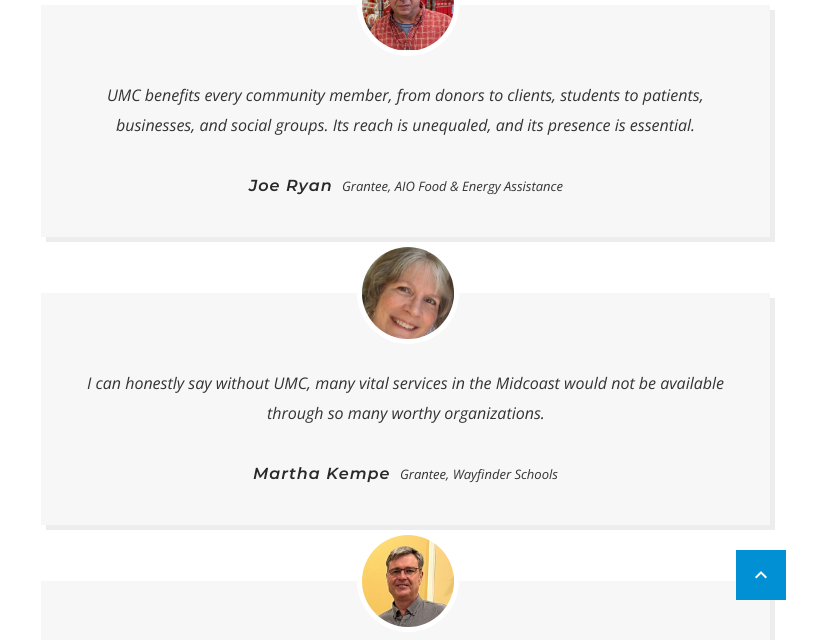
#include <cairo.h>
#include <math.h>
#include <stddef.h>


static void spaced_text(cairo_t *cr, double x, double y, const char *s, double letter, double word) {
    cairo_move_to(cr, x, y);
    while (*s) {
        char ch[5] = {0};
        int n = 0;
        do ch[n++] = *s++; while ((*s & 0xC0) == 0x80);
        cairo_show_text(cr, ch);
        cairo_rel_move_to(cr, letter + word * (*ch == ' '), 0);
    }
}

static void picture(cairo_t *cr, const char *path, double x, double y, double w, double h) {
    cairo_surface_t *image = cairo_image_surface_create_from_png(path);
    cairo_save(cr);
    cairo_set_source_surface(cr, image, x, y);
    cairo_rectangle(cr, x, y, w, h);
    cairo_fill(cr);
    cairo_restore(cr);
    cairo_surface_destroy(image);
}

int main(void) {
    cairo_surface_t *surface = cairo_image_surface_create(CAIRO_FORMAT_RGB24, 816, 640);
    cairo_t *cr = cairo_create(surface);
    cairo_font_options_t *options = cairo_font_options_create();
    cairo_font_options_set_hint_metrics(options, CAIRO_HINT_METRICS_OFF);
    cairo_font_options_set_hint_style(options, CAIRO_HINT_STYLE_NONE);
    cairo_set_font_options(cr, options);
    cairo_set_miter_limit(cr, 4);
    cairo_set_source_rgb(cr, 1, 1, 1);
    cairo_paint(cr);
    cairo_set_source_rgb(cr, 0.929, 0.929, 0.929);
    cairo_new_path(cr);
    cairo_move_to(cr, 46, 237);
    cairo_line_to(cr, 46, 242);
    cairo_line_to(cr, 775, 242);
    cairo_line_to(cr, 775, 10);
    cairo_line_to(cr, 770, 10);
    cairo_line_to(cr, 770, 237);
    cairo_close_path(cr);
    cairo_fill(cr);
    cairo_set_source_rgb(cr, 0.965, 0.965, 0.965);
    cairo_rectangle(cr, 41, 5, 729, 232);
    cairo_fill(cr);
    cairo_arc(cr, 408, 5, 48.5, 0, 2 * M_PI);
    cairo_set_source_rgb(cr, 1, 1, 1);
    cairo_set_line_width(cr, 5);
    cairo_stroke(cr);
    picture(cr, "img1.png", 362, 0, 92, 50);
    cairo_select_font_face(cr, "Open Sans", CAIRO_FONT_SLANT_ITALIC, CAIRO_FONT_WEIGHT_NORMAL);
    cairo_set_font_size(cr, 16);
    cairo_set_source_rgb(cr, 0.2, 0.2, 0.2);
    cairo_move_to(cr, 107, 101);
    cairo_show_text(cr, "UMC benefits every community member, from donors to clients, students to patients,");
    cairo_move_to(cr, 116, 131);
    cairo_show_text(cr, "businesses, and social groups. Its reach is unequaled, and its presence is essential.");
    cairo_select_font_face(cr, "Montserrat SemiBold", CAIRO_FONT_SLANT_ITALIC, CAIRO_FONT_WEIGHT_NORMAL);
    cairo_set_source_rgb(cr, 0.161, 0.161, 0.161);
    spaced_text(cr, 249, 191, "Joe Ryan", 1, 0);
    cairo_select_font_face(cr, "Open Sans", CAIRO_FONT_SLANT_ITALIC, CAIRO_FONT_WEIGHT_NORMAL);
    cairo_set_font_size(cr, 13);
    cairo_set_source_rgb(cr, 0.2, 0.2, 0.2);
    cairo_move_to(cr, 342, 191);
    cairo_show_text(cr, "Grantee, AIO Food & Energy Assistance");
    cairo_set_source_rgb(cr, 0.929, 0.929, 0.929);
    cairo_new_path(cr);
    cairo_move_to(cr, 46, 525);
    cairo_line_to(cr, 46, 530);
    cairo_line_to(cr, 775, 530);
    cairo_line_to(cr, 775, 298);
    cairo_line_to(cr, 770, 298);
    cairo_line_to(cr, 770, 525);
    cairo_close_path(cr);
    cairo_fill(cr);
    cairo_set_source_rgb(cr, 0.965, 0.965, 0.965);
    cairo_rectangle(cr, 41, 293, 729, 232);
    cairo_fill(cr);
    cairo_arc(cr, 408, 293, 48.5, 0, 2 * M_PI);
    cairo_set_source_rgb(cr, 1, 1, 1);
    cairo_stroke(cr);
    picture(cr, "img2.png", 362, 247, 92, 92);
    cairo_set_font_size(cr, 16);
    cairo_set_source_rgb(cr, 0.2, 0.2, 0.2);
    cairo_move_to(cr, 87, 389);
    cairo_show_text(cr, "I can honestly say without UMC, many vital services in the Midcoast would not be available");
    cairo_move_to(cr, 267, 419);
    cairo_show_text(cr, "through so many worthy organizations.");
    cairo_select_font_face(cr, "Montserrat SemiBold", CAIRO_FONT_SLANT_ITALIC, CAIRO_FONT_WEIGHT_NORMAL);
    cairo_set_source_rgb(cr, 0.161, 0.161, 0.161);
    spaced_text(cr, 253, 479, "Martha Kempe", 1, 0);
    cairo_select_font_face(cr, "Open Sans", CAIRO_FONT_SLANT_ITALIC, CAIRO_FONT_WEIGHT_NORMAL);
    cairo_set_font_size(cr, 13);
    cairo_set_source_rgb(cr, 0.2, 0.2, 0.2);
    cairo_move_to(cr, 400, 479);
    cairo_show_text(cr, "Grantee, Wayfinder Schools");
    cairo_set_source_rgb(cr, 0.965, 0.965, 0.965);
    cairo_rectangle(cr, 41, 581, 729, 59);
    cairo_fill(cr);
    cairo_arc(cr, 408, 581, 48.5, 0, 2 * M_PI);
    cairo_set_source_rgb(cr, 1, 1, 1);
    cairo_stroke(cr);
    picture(cr, "img3.png", 362, 535, 92, 92);
    cairo_set_source_rgb(cr, 0.929, 0.929, 0.929);
    cairo_new_path(cr);
    cairo_move_to(cr, 46, 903);
    cairo_line_to(cr, 46, 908);
    cairo_line_to(cr, 775, 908);
    cairo_line_to(cr, 775, 586);
    cairo_line_to(cr, 770, 586);
    cairo_line_to(cr, 770, 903);
    cairo_close_path(cr);
    cairo_fill(cr);
    cairo_set_source_rgb(cr, 0, 0.565, 0.827);
    cairo_rectangle(cr, 736, 550, 50, 50);
    cairo_fill(cr);
    picture(cr, "img4.png", 755, 571, 12, 8);
    cairo_surface_write_to_png(surface, "page.png");
    cairo_font_options_destroy(options);
    cairo_destroy(cr);
    cairo_surface_destroy(surface);
    return 0;
}
